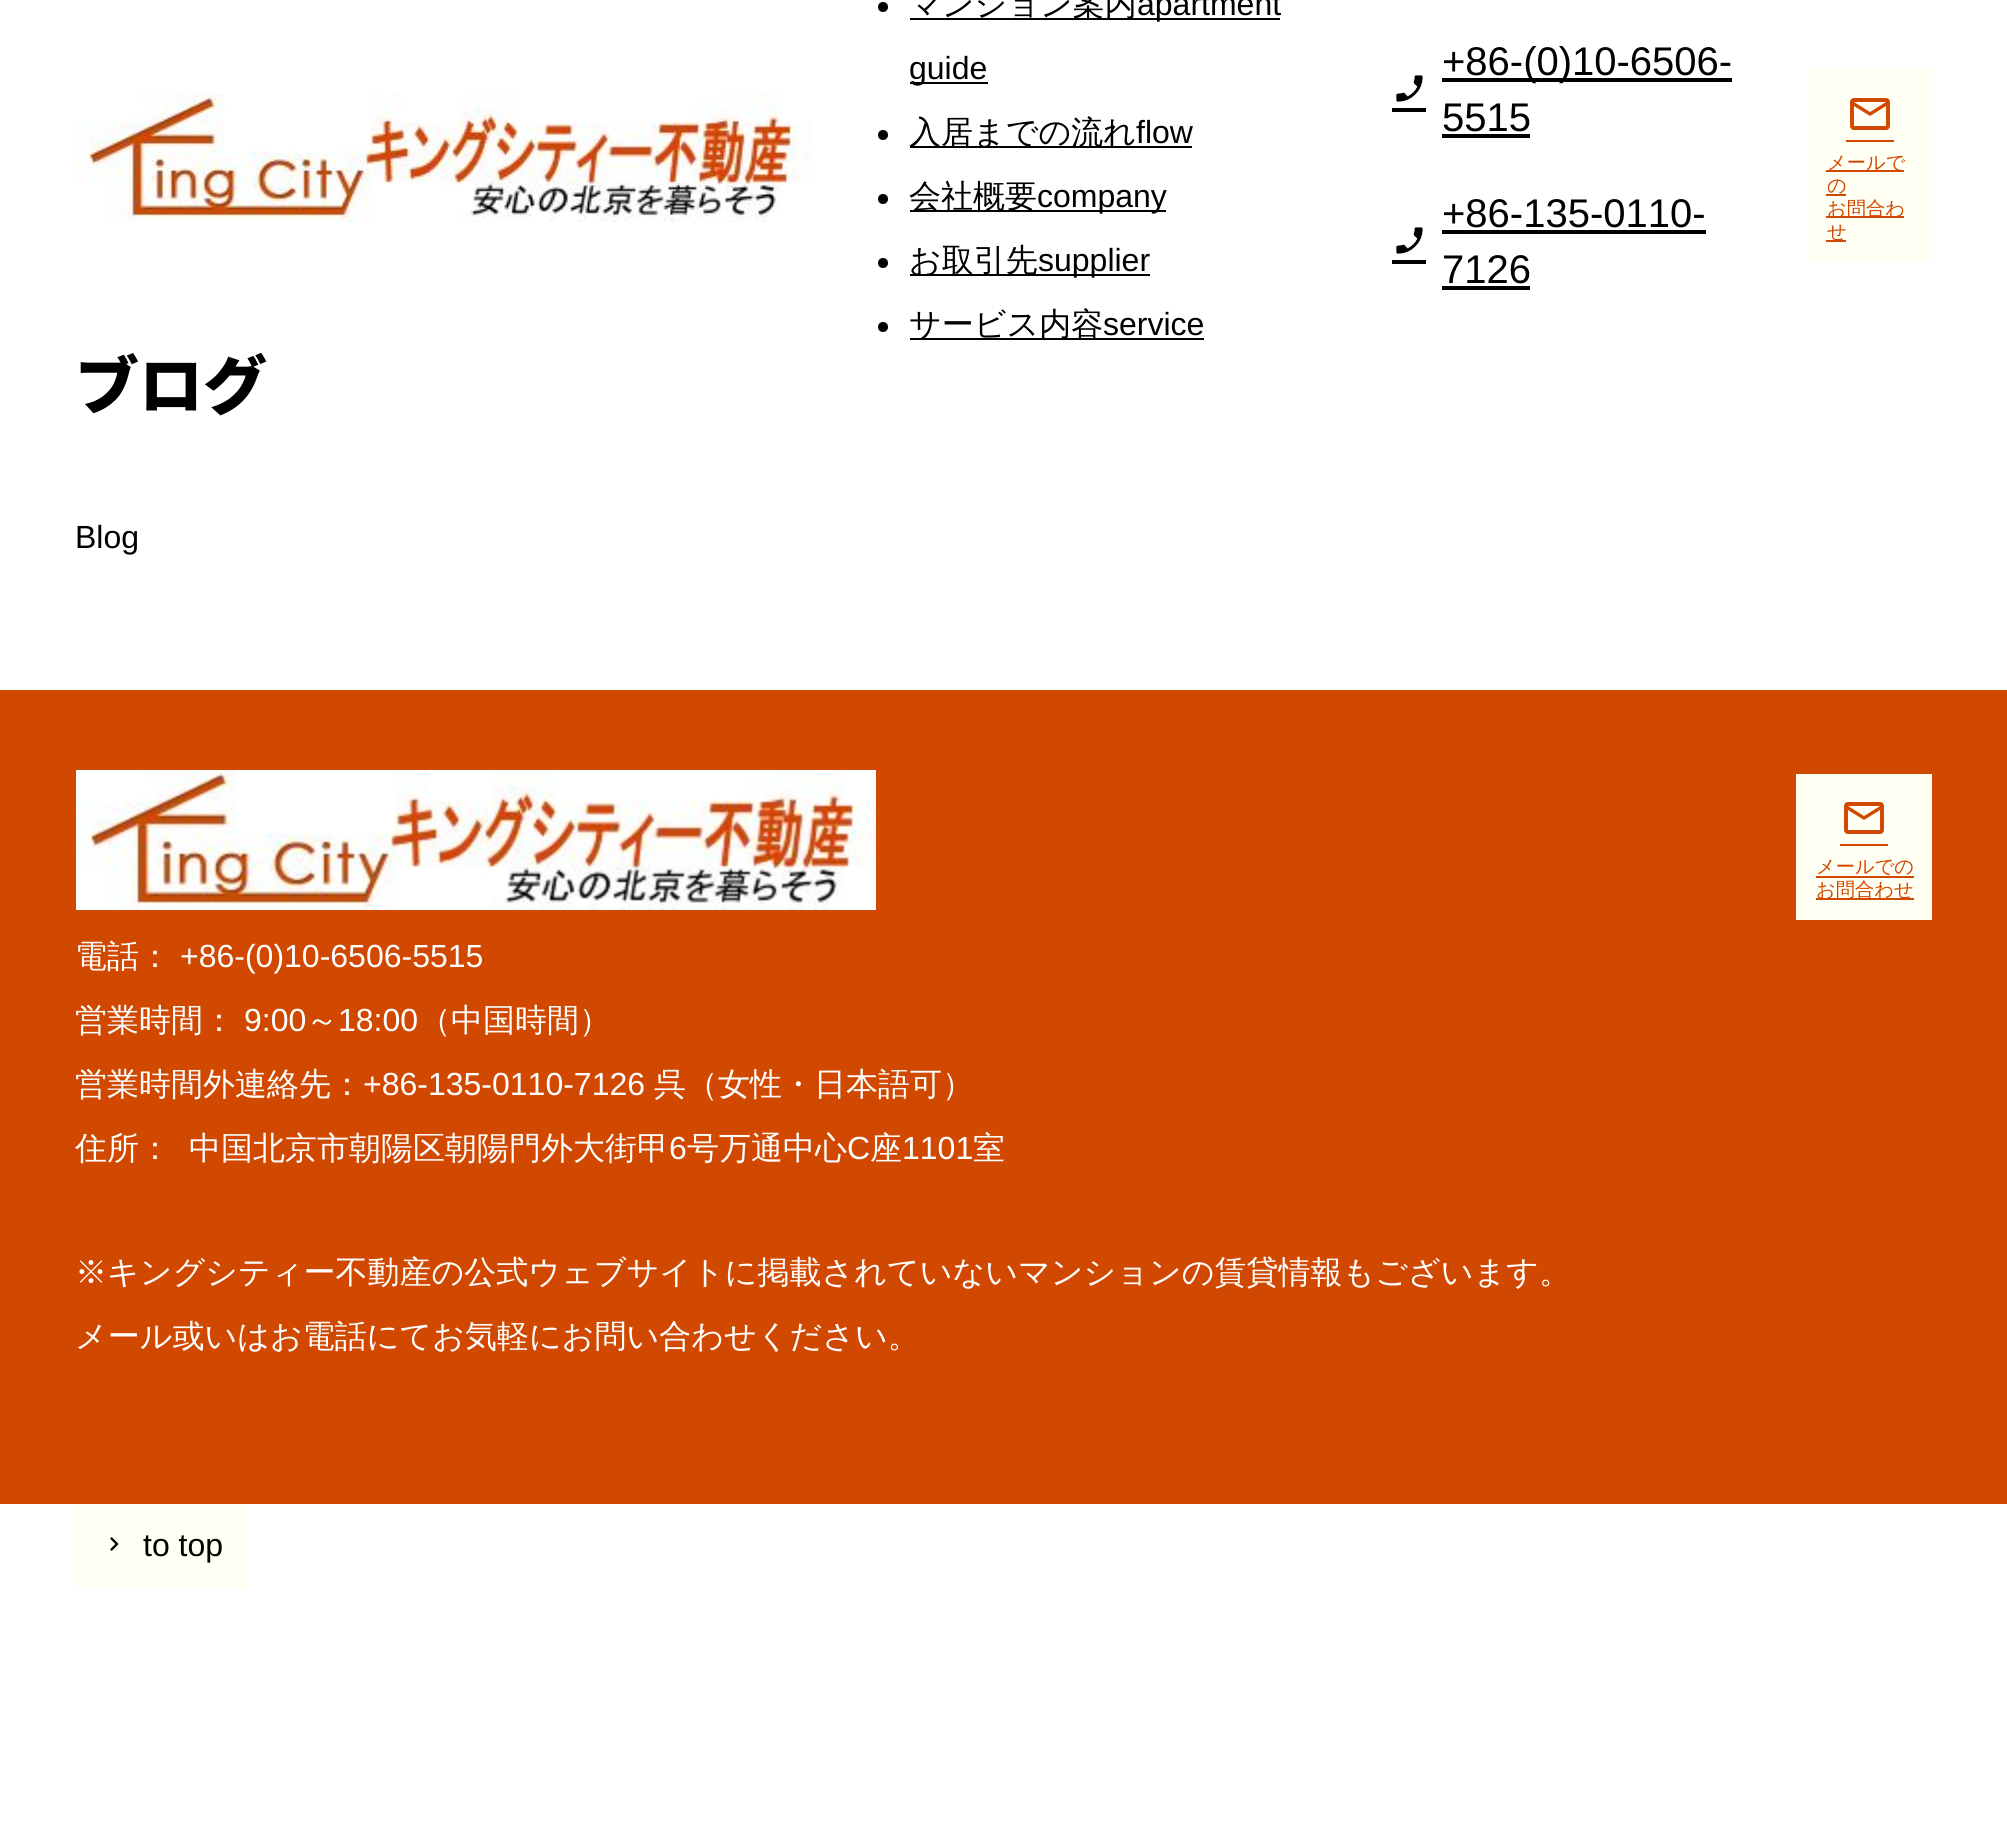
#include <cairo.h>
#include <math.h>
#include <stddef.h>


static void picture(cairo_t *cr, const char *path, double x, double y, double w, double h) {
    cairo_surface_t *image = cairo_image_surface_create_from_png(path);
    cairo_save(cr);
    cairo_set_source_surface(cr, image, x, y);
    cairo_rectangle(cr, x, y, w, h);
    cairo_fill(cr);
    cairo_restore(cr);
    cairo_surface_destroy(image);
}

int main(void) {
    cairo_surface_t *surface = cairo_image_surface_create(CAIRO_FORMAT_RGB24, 2007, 1832);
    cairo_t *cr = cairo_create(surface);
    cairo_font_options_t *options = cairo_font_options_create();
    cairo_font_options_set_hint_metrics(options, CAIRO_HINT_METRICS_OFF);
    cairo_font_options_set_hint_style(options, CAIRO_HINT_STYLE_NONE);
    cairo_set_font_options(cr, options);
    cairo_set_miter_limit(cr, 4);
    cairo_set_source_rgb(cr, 1, 1, 1);
    cairo_paint(cr);
    picture(cr, "img1.png", 76, 94, 736, 128);
    cairo_set_source_rgb(cr, 0, 0, 0);
    cairo_arc(cr, 883, 7, 5, 0, 2 * M_PI);
    cairo_fill(cr);
    cairo_rectangle(cr, 910, 18, 370, 2);
    cairo_fill(cr);
    cairo_select_font_face(cr, "WenQuanYi Zen Hei Medium", CAIRO_FONT_SLANT_NORMAL, CAIRO_FONT_WEIGHT_NORMAL);
    cairo_set_font_size(cr, 32);
    cairo_move_to(cr, 909, 15);
    cairo_show_text(cr, "マンション案内");
    cairo_select_font_face(cr, "Liberation Sans", CAIRO_FONT_SLANT_NORMAL, CAIRO_FONT_WEIGHT_NORMAL);
    cairo_move_to(cr, 1137, 15);
    cairo_show_text(cr, "apartment");
    cairo_rectangle(cr, 910, 82, 78, 2);
    cairo_fill(cr);
    cairo_move_to(cr, 909, 79);
    cairo_show_text(cr, "guide");
    cairo_new_path(cr);
    cairo_arc(cr, 883, 135, 5, 0, 2 * M_PI);
    cairo_fill(cr);
    cairo_rectangle(cr, 910, 146, 282, 2);
    cairo_fill(cr);
    cairo_select_font_face(cr, "WenQuanYi Zen Hei Medium", CAIRO_FONT_SLANT_NORMAL, CAIRO_FONT_WEIGHT_NORMAL);
    cairo_move_to(cr, 909, 143);
    cairo_show_text(cr, "入居までの流れ");
    cairo_select_font_face(cr, "Liberation Sans", CAIRO_FONT_SLANT_NORMAL, CAIRO_FONT_WEIGHT_NORMAL);
    cairo_move_to(cr, 1136, 143);
    cairo_show_text(cr, "flow");
    cairo_new_path(cr);
    cairo_arc(cr, 883, 199, 5, 0, 2 * M_PI);
    cairo_fill(cr);
    cairo_rectangle(cr, 910, 210, 256, 2);
    cairo_fill(cr);
    cairo_select_font_face(cr, "WenQuanYi Zen Hei Medium", CAIRO_FONT_SLANT_NORMAL, CAIRO_FONT_WEIGHT_NORMAL);
    cairo_move_to(cr, 909, 207);
    cairo_show_text(cr, "会社概要");
    cairo_select_font_face(cr, "Liberation Sans", CAIRO_FONT_SLANT_NORMAL, CAIRO_FONT_WEIGHT_NORMAL);
    cairo_move_to(cr, 1037, 207);
    cairo_show_text(cr, "company");
    cairo_new_path(cr);
    cairo_arc(cr, 883, 263, 5, 0, 2 * M_PI);
    cairo_fill(cr);
    cairo_rectangle(cr, 910, 274, 240, 2);
    cairo_fill(cr);
    cairo_select_font_face(cr, "WenQuanYi Zen Hei Medium", CAIRO_FONT_SLANT_NORMAL, CAIRO_FONT_WEIGHT_NORMAL);
    cairo_move_to(cr, 909, 271);
    cairo_show_text(cr, "お取引先");
    cairo_select_font_face(cr, "Liberation Sans", CAIRO_FONT_SLANT_NORMAL, CAIRO_FONT_WEIGHT_NORMAL);
    cairo_move_to(cr, 1038, 271);
    cairo_show_text(cr, "supplier");
    cairo_new_path(cr);
    cairo_arc(cr, 883, 327, 5, 0, 2 * M_PI);
    cairo_fill(cr);
    cairo_rectangle(cr, 910, 338, 294, 2);
    cairo_fill(cr);
    cairo_select_font_face(cr, "WenQuanYi Zen Hei Medium", CAIRO_FONT_SLANT_NORMAL, CAIRO_FONT_WEIGHT_NORMAL);
    cairo_move_to(cr, 909, 335);
    cairo_show_text(cr, "サービス内容");
    cairo_select_font_face(cr, "Liberation Sans", CAIRO_FONT_SLANT_NORMAL, CAIRO_FONT_WEIGHT_NORMAL);
    cairo_move_to(cr, 1103, 335);
    cairo_show_text(cr, "service");
    cairo_rectangle(cr, 1392, 108, 34, 4);
    cairo_fill(cr);
    picture(cr, "img2.png", 1396, 75, 27, 27);
    cairo_rectangle(cr, 1442, 78, 290, 4);
    cairo_fill(cr);
    cairo_set_font_size(cr, 40);
    cairo_move_to(cr, 1442, 75);
    cairo_show_text(cr, "+86-(0)10-6506-");
    cairo_move_to(cr, 1442, 131);
    cairo_show_text(cr, "5515");
    cairo_rectangle(cr, 1442, 134, 88, 4);
    cairo_fill(cr);
    cairo_rectangle(cr, 1392, 260, 34, 4);
    cairo_fill(cr);
    picture(cr, "img2.png", 1396, 227, 27, 27);
    cairo_move_to(cr, 1442, 227);
    cairo_show_text(cr, "+86-135-0110-");
    cairo_rectangle(cr, 1442, 230, 264, 4);
    cairo_fill(cr);
    cairo_move_to(cr, 1442, 283);
    cairo_show_text(cr, "7126");
    cairo_rectangle(cr, 1442, 286, 88, 4);
    cairo_fill(cr);
    cairo_set_source_rgb(cr, 1, 1, 0.957);
    cairo_rectangle(cr, 1808, 68, 124, 194);
    cairo_fill(cr);
    cairo_set_source_rgb(cr, 0.82, 0.282, 0);
    cairo_rectangle(cr, 1846, 140, 48, 2);
    cairo_fill(cr);
    picture(cr, "img3.png", 1850, 98, 40, 32);
    cairo_rectangle(cr, 1826, 170, 78, 2);
    cairo_fill(cr);
    cairo_select_font_face(cr, "WenQuanYi Zen Hei Medium", CAIRO_FONT_SLANT_NORMAL, CAIRO_FONT_WEIGHT_NORMAL);
    cairo_set_font_size(cr, 19.25);
    cairo_move_to(cr, 1827, 169);
    cairo_show_text(cr, "メールで");
    cairo_move_to(cr, 1827, 192);
    cairo_show_text(cr, "の");
    cairo_rectangle(cr, 1826, 194, 20, 2);
    cairo_fill(cr);
    cairo_rectangle(cr, 1826, 216, 78, 2);
    cairo_fill(cr);
    cairo_move_to(cr, 1827, 215);
    cairo_show_text(cr, "お問合わ");
    cairo_rectangle(cr, 1826, 240, 20, 2);
    cairo_fill(cr);
    cairo_move_to(cr, 1827, 238);
    cairo_show_text(cr, "せ");
    cairo_select_font_face(cr, "Noto Sans JP Black", CAIRO_FONT_SLANT_NORMAL, CAIRO_FONT_WEIGHT_NORMAL);
    cairo_set_font_size(cr, 64);
    cairo_set_source_rgb(cr, 0, 0, 0);
    cairo_move_to(cr, 75, 409);
    cairo_show_text(cr, "ブログ");
    cairo_select_font_face(cr, "Liberation Sans", CAIRO_FONT_SLANT_NORMAL, CAIRO_FONT_WEIGHT_NORMAL);
    cairo_set_font_size(cr, 32);
    cairo_move_to(cr, 75, 548);
    cairo_show_text(cr, "Blog");
    cairo_set_source_rgb(cr, 0.82, 0.282, 0);
    cairo_rectangle(cr, 0, 690, 2007, 814);
    cairo_fill(cr);
    picture(cr, "img4.png", 76, 770, 800, 140);
    cairo_set_source_rgb(cr, 1, 1, 0.957);
    cairo_rectangle(cr, 1796, 774, 136, 146);
    cairo_fill(cr);
    cairo_set_source_rgb(cr, 0.82, 0.282, 0);
    cairo_rectangle(cr, 1840, 844, 48, 2);
    cairo_fill(cr);
    picture(cr, "img3.png", 1844, 802, 40, 32);
    cairo_select_font_face(cr, "WenQuanYi Zen Hei Medium", CAIRO_FONT_SLANT_NORMAL, CAIRO_FONT_WEIGHT_NORMAL);
    cairo_set_font_size(cr, 19.25);
    cairo_move_to(cr, 1816, 873);
    cairo_show_text(cr, "メールでの");
    cairo_rectangle(cr, 1816, 876, 98, 2);
    cairo_fill(cr);
    cairo_rectangle(cr, 1816, 898, 98, 2);
    cairo_fill(cr);
    cairo_move_to(cr, 1816, 896);
    cairo_show_text(cr, "お問合わせ");
    cairo_set_font_size(cr, 32);
    cairo_set_source_rgb(cr, 1, 1, 1);
    cairo_move_to(cr, 75, 967);
    cairo_show_text(cr, "電話：");
    cairo_select_font_face(cr, "Liberation Sans", CAIRO_FONT_SLANT_NORMAL, CAIRO_FONT_WEIGHT_NORMAL);
    cairo_move_to(cr, 180, 967);
    cairo_show_text(cr, "+86-(0)10-6506-5515");
    cairo_select_font_face(cr, "WenQuanYi Zen Hei Medium", CAIRO_FONT_SLANT_NORMAL, CAIRO_FONT_WEIGHT_NORMAL);
    cairo_move_to(cr, 75, 1031);
    cairo_show_text(cr, "営業時間：");
    cairo_select_font_face(cr, "Liberation Sans", CAIRO_FONT_SLANT_NORMAL, CAIRO_FONT_WEIGHT_NORMAL);
    cairo_move_to(cr, 244, 1031);
    cairo_show_text(cr, "9:00");
    cairo_select_font_face(cr, "WenQuanYi Zen Hei Medium", CAIRO_FONT_SLANT_NORMAL, CAIRO_FONT_WEIGHT_NORMAL);
    cairo_move_to(cr, 306, 1031);
    cairo_show_text(cr, "～");
    cairo_select_font_face(cr, "Liberation Sans", CAIRO_FONT_SLANT_NORMAL, CAIRO_FONT_WEIGHT_NORMAL);
    cairo_move_to(cr, 338, 1031);
    cairo_show_text(cr, "18:00");
    cairo_select_font_face(cr, "WenQuanYi Zen Hei Medium", CAIRO_FONT_SLANT_NORMAL, CAIRO_FONT_WEIGHT_NORMAL);
    cairo_move_to(cr, 419, 1031);
    cairo_show_text(cr, "（中国時間）");
    cairo_move_to(cr, 75, 1095);
    cairo_show_text(cr, "営業時間外連絡先：");
    cairo_select_font_face(cr, "Liberation Sans", CAIRO_FONT_SLANT_NORMAL, CAIRO_FONT_WEIGHT_NORMAL);
    cairo_move_to(cr, 363, 1095);
    cairo_show_text(cr, "+86-135-0110-7126");
    cairo_select_font_face(cr, "WenQuanYi Zen Hei Medium", CAIRO_FONT_SLANT_NORMAL, CAIRO_FONT_WEIGHT_NORMAL);
    cairo_move_to(cr, 654, 1095);
    cairo_show_text(cr, "呉（女性・日本語可）");
    cairo_move_to(cr, 75, 1159);
    cairo_show_text(cr, "住所：");
    cairo_move_to(cr, 189, 1159);
    cairo_show_text(cr, "中国北京市朝陽区朝陽門外大街甲");
    cairo_select_font_face(cr, "Liberation Sans", CAIRO_FONT_SLANT_NORMAL, CAIRO_FONT_WEIGHT_NORMAL);
    cairo_move_to(cr, 669, 1159);
    cairo_show_text(cr, "6");
    cairo_select_font_face(cr, "WenQuanYi Zen Hei Medium", CAIRO_FONT_SLANT_NORMAL, CAIRO_FONT_WEIGHT_NORMAL);
    cairo_move_to(cr, 687, 1159);
    cairo_show_text(cr, "号万通中心");
    cairo_select_font_face(cr, "Liberation Sans", CAIRO_FONT_SLANT_NORMAL, CAIRO_FONT_WEIGHT_NORMAL);
    cairo_move_to(cr, 847, 1159);
    cairo_show_text(cr, "C");
    cairo_select_font_face(cr, "WenQuanYi Zen Hei Medium", CAIRO_FONT_SLANT_NORMAL, CAIRO_FONT_WEIGHT_NORMAL);
    cairo_move_to(cr, 870, 1159);
    cairo_show_text(cr, "座");
    cairo_select_font_face(cr, "Liberation Sans", CAIRO_FONT_SLANT_NORMAL, CAIRO_FONT_WEIGHT_NORMAL);
    cairo_move_to(cr, 902, 1159);
    cairo_show_text(cr, "1101");
    cairo_select_font_face(cr, "WenQuanYi Zen Hei Medium", CAIRO_FONT_SLANT_NORMAL, CAIRO_FONT_WEIGHT_NORMAL);
    cairo_move_to(cr, 973, 1159);
    cairo_show_text(cr, "室");
    cairo_move_to(cr, 75, 1283);
    cairo_show_text(cr, "※キングシティー不動産の公式ウェブサイトに掲載されていないマンションの賃貸情報もございます。");
    cairo_move_to(cr, 75, 1347);
    cairo_show_text(cr, "メール或いはお電話にてお気軽にお問い合わせください。");
    cairo_set_source_rgb(cr, 1, 1, 0.957);
    cairo_rectangle(cr, 76, 1504, 172, 84);
    cairo_fill(cr);
    picture(cr, "img5.png", 110, 1537, 9, 14);
    cairo_select_font_face(cr, "Liberation Sans", CAIRO_FONT_SLANT_NORMAL, CAIRO_FONT_WEIGHT_NORMAL);
    cairo_set_source_rgb(cr, 0, 0, 0);
    cairo_move_to(cr, 143, 1556);
    cairo_show_text(cr, "to top");
    cairo_surface_write_to_png(surface, "page.png");
    cairo_font_options_destroy(options);
    cairo_destroy(cr);
    cairo_surface_destroy(surface);
    return 0;
}
